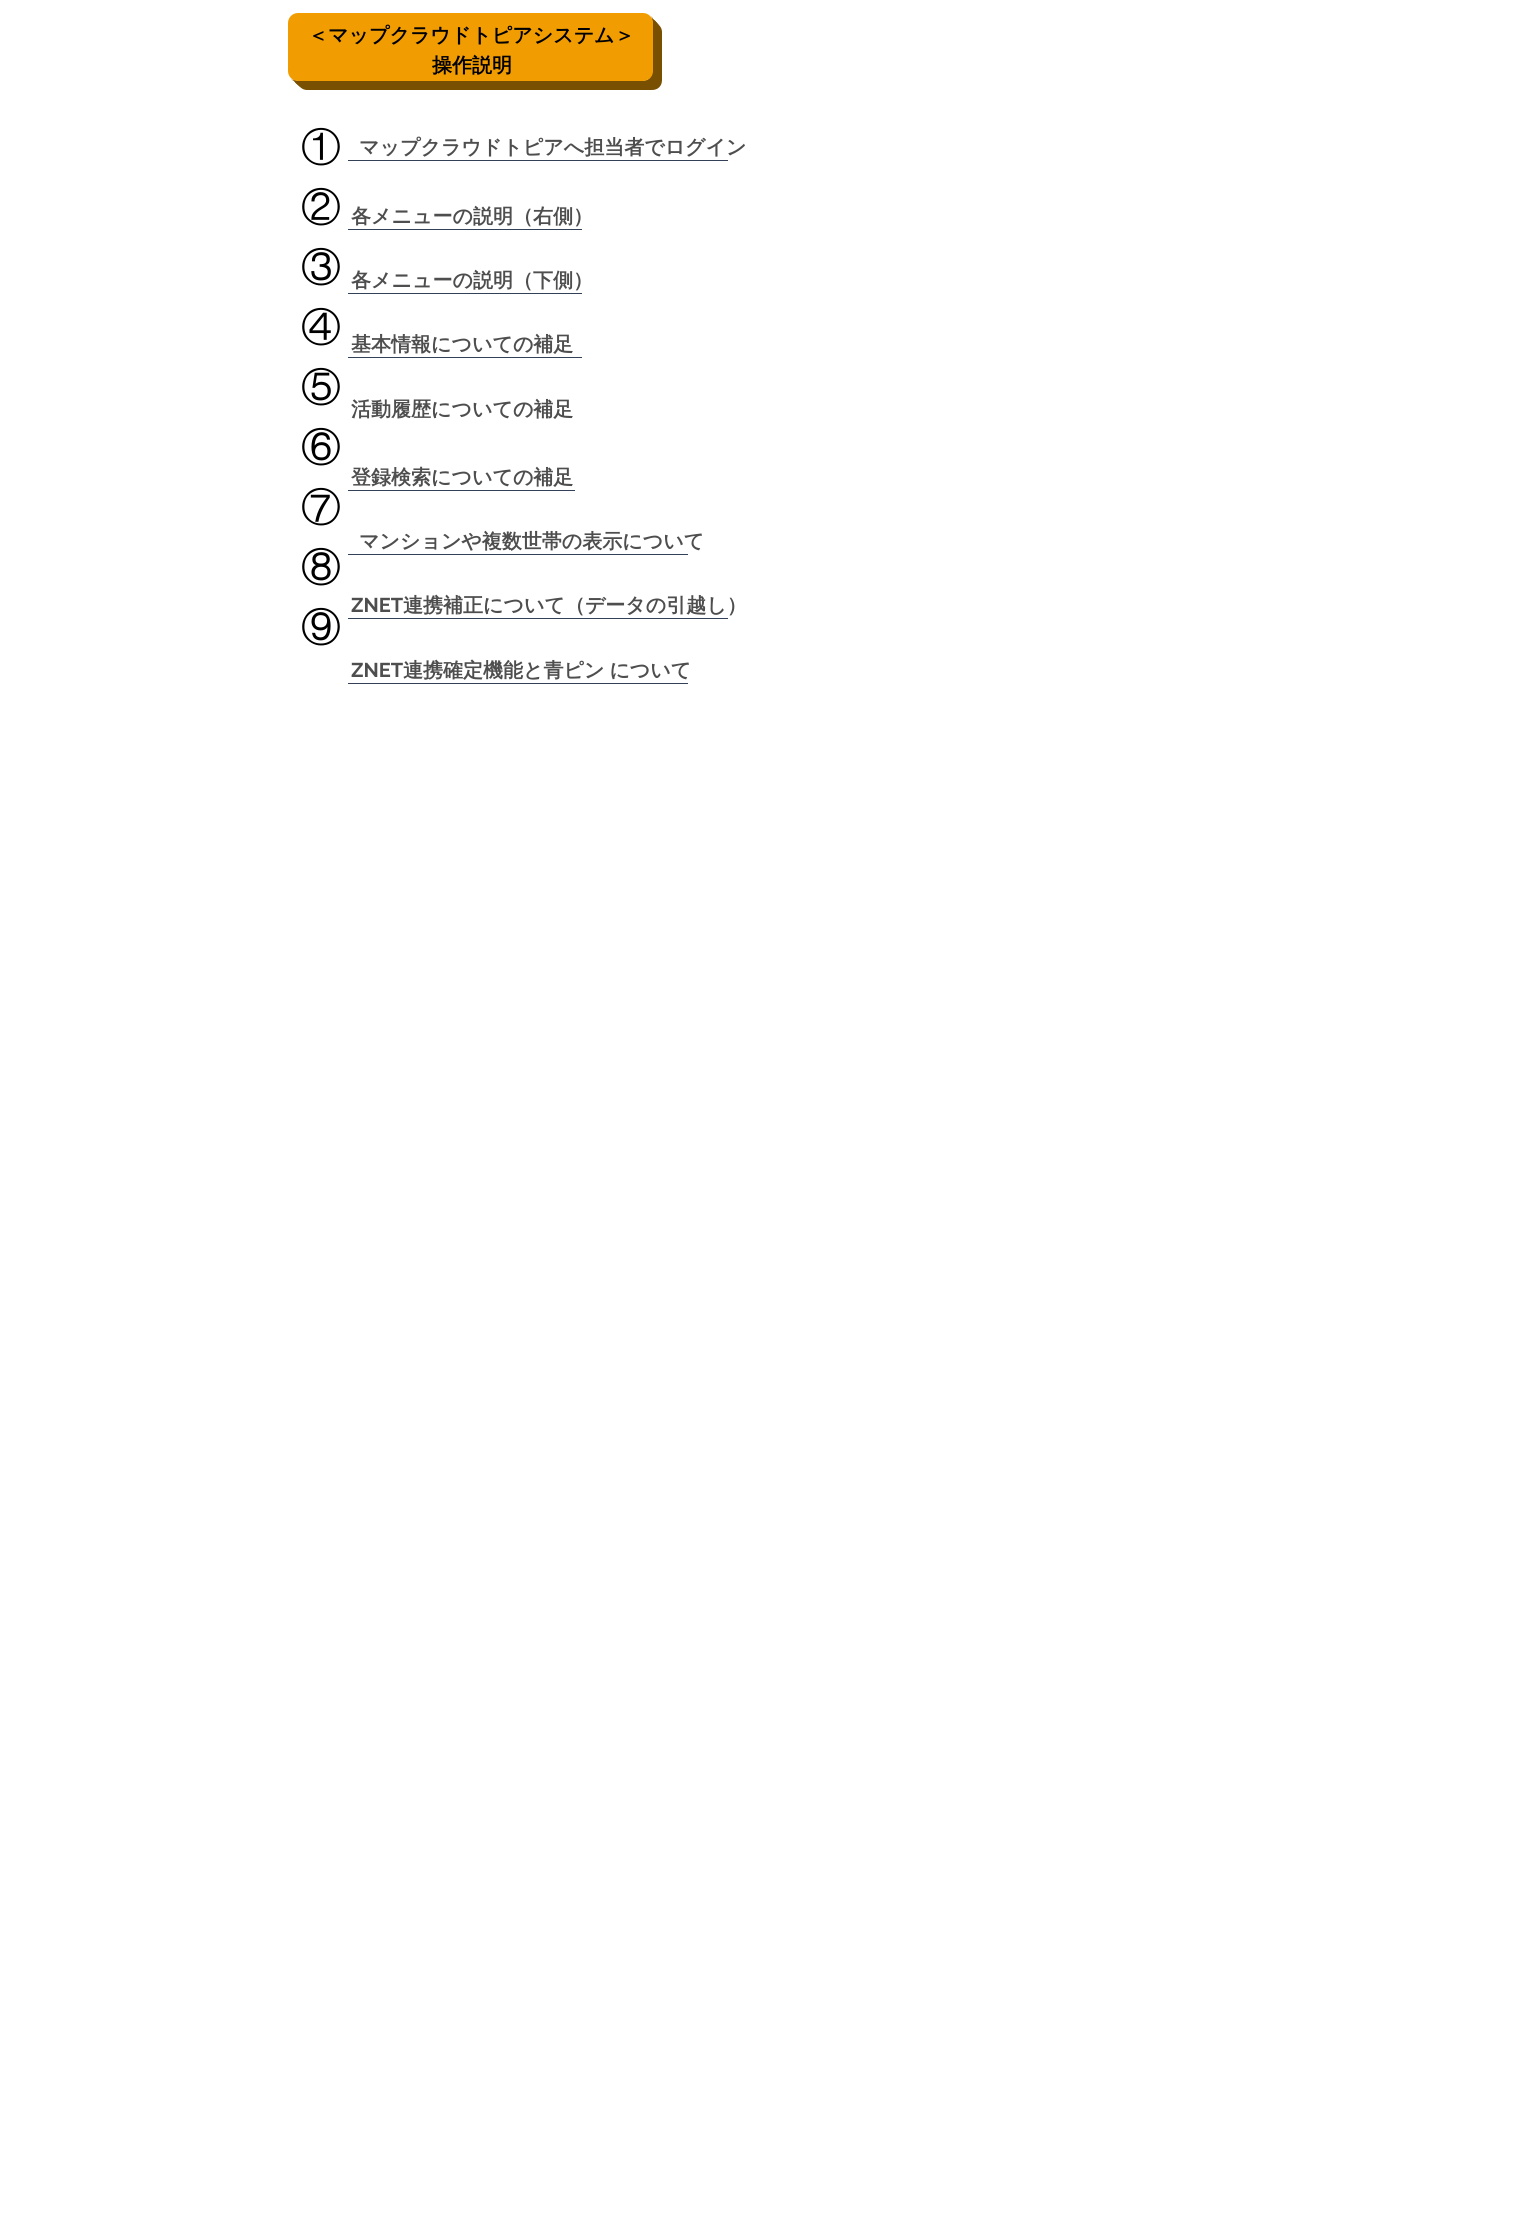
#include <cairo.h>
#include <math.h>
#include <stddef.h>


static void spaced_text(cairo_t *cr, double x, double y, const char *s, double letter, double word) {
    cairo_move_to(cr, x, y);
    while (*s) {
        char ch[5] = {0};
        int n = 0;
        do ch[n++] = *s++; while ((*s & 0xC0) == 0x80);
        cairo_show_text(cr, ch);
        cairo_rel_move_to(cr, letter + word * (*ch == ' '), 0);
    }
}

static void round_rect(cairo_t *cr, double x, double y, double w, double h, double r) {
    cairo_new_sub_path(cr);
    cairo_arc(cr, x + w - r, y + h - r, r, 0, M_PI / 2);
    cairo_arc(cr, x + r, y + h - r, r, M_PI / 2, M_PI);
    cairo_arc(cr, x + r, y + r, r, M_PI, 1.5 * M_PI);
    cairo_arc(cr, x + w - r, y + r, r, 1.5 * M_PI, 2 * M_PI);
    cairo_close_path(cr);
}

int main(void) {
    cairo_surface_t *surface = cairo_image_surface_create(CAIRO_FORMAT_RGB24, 1519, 2235);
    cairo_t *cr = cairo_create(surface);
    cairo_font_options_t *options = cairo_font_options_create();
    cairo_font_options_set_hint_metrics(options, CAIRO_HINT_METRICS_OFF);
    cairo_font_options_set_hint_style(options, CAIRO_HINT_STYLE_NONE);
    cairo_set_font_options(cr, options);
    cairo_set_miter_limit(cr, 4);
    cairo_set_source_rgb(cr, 1, 1, 1);
    cairo_paint(cr);
    cairo_set_source_rgb(cr, 0.475, 0.31, 0.004);
    cairo_new_path(cr);
    cairo_move_to(cr, 297, 81);
    cairo_curve_to(cr, 298, 86, 302, 90, 307, 90);
    cairo_line_to(cr, 652, 90);
    cairo_curve_to(cr, 658, 90, 662, 86, 662, 80);
    cairo_line_to(cr, 662, 32);
    cairo_curve_to(cr, 662, 27, 658, 23, 653, 22);
    cairo_line_to(cr, 653, 55);
    cairo_curve_to(cr, 653, 63, 656, 81, 643, 81);
    cairo_close_path(cr);
    cairo_fill(cr);
    cairo_new_path(cr);
    cairo_move_to(cr, 295, 81);
    cairo_curve_to(cr, 297, 85, 300, 88, 305, 88);
    cairo_line_to(cr, 650, 88);
    cairo_curve_to(cr, 656, 88, 660, 84, 660, 78);
    cairo_line_to(cr, 660, 30);
    cairo_curve_to(cr, 660, 25, 657, 22, 653, 20);
    cairo_line_to(cr, 653, 55);
    cairo_curve_to(cr, 653, 63, 656, 81, 643, 81);
    cairo_close_path(cr);
    cairo_fill(cr);
    cairo_new_path(cr);
    cairo_move_to(cr, 294, 80);
    cairo_curve_to(cr, 295, 84, 299, 86, 303, 86);
    cairo_line_to(cr, 648, 86);
    cairo_curve_to(cr, 654, 86, 658, 82, 658, 76);
    cairo_line_to(cr, 658, 28);
    cairo_curve_to(cr, 658, 24, 656, 20, 652, 19);
    cairo_line_to(cr, 653, 23);
    cairo_line_to(cr, 653, 71);
    cairo_curve_to(cr, 653, 77, 649, 81, 643, 81);
    cairo_line_to(cr, 298, 81);
    cairo_close_path(cr);
    cairo_fill(cr);
    cairo_new_path(cr);
    cairo_move_to(cr, 293, 79);
    cairo_curve_to(cr, 294, 82, 297, 84, 301, 84);
    cairo_line_to(cr, 646, 84);
    cairo_curve_to(cr, 652, 84, 656, 80, 656, 74);
    cairo_line_to(cr, 656, 26);
    cairo_curve_to(cr, 656, 22, 654, 19, 651, 18);
    cairo_curve_to(cr, 652, 19, 653, 21, 653, 23);
    cairo_line_to(cr, 653, 71);
    cairo_curve_to(cr, 653, 77, 649, 81, 643, 81);
    cairo_line_to(cr, 298, 81);
    cairo_curve_to(cr, 296, 81, 294, 80, 293, 79);
    cairo_close_path(cr);
    cairo_fill(cr);
    cairo_new_path(cr);
    cairo_move_to(cr, 291, 79);
    cairo_curve_to(cr, 293, 81, 296, 82, 299, 82);
    cairo_line_to(cr, 644, 82);
    cairo_curve_to(cr, 650, 82, 654, 78, 654, 72);
    cairo_line_to(cr, 654, 24);
    cairo_curve_to(cr, 654, 21, 653, 18, 651, 16);
    cairo_curve_to(cr, 652, 18, 653, 20, 653, 23);
    cairo_line_to(cr, 653, 71);
    cairo_curve_to(cr, 653, 77, 649, 81, 643, 81);
    cairo_line_to(cr, 298, 81);
    cairo_curve_to(cr, 295, 81, 293, 80, 291, 79);
    cairo_close_path(cr);
    cairo_fill(cr);
    cairo_set_source_rgb(cr, 0.945, 0.616, 0.004);
    round_rect(cr, 288, 13, 365, 68, 10);
    cairo_fill(cr);
    cairo_select_font_face(cr, "WenQuanYi Zen Hei", CAIRO_FONT_SLANT_NORMAL, CAIRO_FONT_WEIGHT_BOLD);
    cairo_set_font_size(cr, 20);
    cairo_set_source_rgb(cr, 0, 0, 0);
    cairo_move_to(cr, 308, 42);
    cairo_show_text(cr, "＜マップクラウドトピアシステム＞");
    cairo_move_to(cr, 432, 72);
    cairo_show_text(cr, "操作説明");
    cairo_select_font_face(cr, "WenQuanYi Zen Hei Medium", CAIRO_FONT_SLANT_NORMAL, CAIRO_FONT_WEIGHT_NORMAL);
    cairo_set_font_size(cr, 40);
    cairo_move_to(cr, 301, 161);
    cairo_show_text(cr, "①");
    cairo_move_to(cr, 301, 221);
    cairo_show_text(cr, "②");
    cairo_move_to(cr, 301, 281);
    cairo_show_text(cr, "③");
    cairo_move_to(cr, 301, 341);
    cairo_show_text(cr, "④");
    cairo_move_to(cr, 301, 401);
    cairo_show_text(cr, "⑤");
    cairo_move_to(cr, 301, 461);
    cairo_show_text(cr, "⑥");
    cairo_move_to(cr, 301, 521);
    cairo_show_text(cr, "⑦");
    cairo_move_to(cr, 301, 581);
    cairo_show_text(cr, "⑧");
    cairo_move_to(cr, 301, 641);
    cairo_show_text(cr, "⑨");
    cairo_select_font_face(cr, "WenQuanYi Zen Hei", CAIRO_FONT_SLANT_NORMAL, CAIRO_FONT_WEIGHT_BOLD);
    cairo_set_font_size(cr, 20);
    cairo_set_source_rgb(cr, 0.306, 0.306, 0.306);
    cairo_move_to(cr, 359, 154);
    cairo_show_text(cr, "マップクラウドトピアへ担当者でログイン");
    cairo_set_source_rgb(cr, 0.196, 0.255, 0.345);
    cairo_rectangle(cr, 348, 160, 380, 1);
    cairo_fill(cr);
    cairo_set_source_rgb(cr, 0.306, 0.306, 0.306);
    cairo_move_to(cr, 351, 223);
    cairo_show_text(cr, "各メニューの説明（右側）");
    cairo_set_source_rgb(cr, 0.196, 0.255, 0.345);
    cairo_rectangle(cr, 348, 229, 234, 1);
    cairo_fill(cr);
    cairo_set_source_rgb(cr, 0.306, 0.306, 0.306);
    cairo_move_to(cr, 351, 287);
    cairo_show_text(cr, "各メニューの説明（下側）");
    cairo_set_source_rgb(cr, 0.196, 0.255, 0.345);
    cairo_rectangle(cr, 348, 293, 234, 1);
    cairo_fill(cr);
    cairo_set_source_rgb(cr, 0.306, 0.306, 0.306);
    cairo_move_to(cr, 351, 351);
    cairo_show_text(cr, "基本情報についての補足");
    cairo_set_source_rgb(cr, 0.196, 0.255, 0.345);
    cairo_rectangle(cr, 348, 357, 234, 1);
    cairo_fill(cr);
    cairo_set_source_rgb(cr, 0.306, 0.306, 0.306);
    cairo_move_to(cr, 351, 416);
    cairo_show_text(cr, "活動履歴についての補足");
    cairo_move_to(cr, 351, 484);
    cairo_show_text(cr, "登録検索についての補足");
    cairo_set_source_rgb(cr, 0.196, 0.255, 0.345);
    cairo_rectangle(cr, 348, 490, 227, 1);
    cairo_fill(cr);
    cairo_set_source_rgb(cr, 0.306, 0.306, 0.306);
    cairo_move_to(cr, 359, 548);
    cairo_show_text(cr, "マンションや複数世帯の表示について");
    cairo_set_source_rgb(cr, 0.196, 0.255, 0.345);
    cairo_rectangle(cr, 348, 554, 340, 1);
    cairo_fill(cr);
    cairo_select_font_face(cr, "Raleway", CAIRO_FONT_SLANT_NORMAL, CAIRO_FONT_WEIGHT_BOLD);
    cairo_set_source_rgb(cr, 0.306, 0.306, 0.306);
    cairo_move_to(cr, 351, 612);
    cairo_show_text(cr, "ZNET");
    cairo_select_font_face(cr, "WenQuanYi Zen Hei", CAIRO_FONT_SLANT_NORMAL, CAIRO_FONT_WEIGHT_BOLD);
    cairo_move_to(cr, 403, 612);
    cairo_show_text(cr, "連携補正について（データの引越し）");
    cairo_set_source_rgb(cr, 0.196, 0.255, 0.345);
    cairo_rectangle(cr, 348, 618, 380, 1);
    cairo_fill(cr);
    cairo_select_font_face(cr, "Raleway", CAIRO_FONT_SLANT_NORMAL, CAIRO_FONT_WEIGHT_BOLD);
    cairo_set_source_rgb(cr, 0.306, 0.306, 0.306);
    cairo_move_to(cr, 351, 677);
    cairo_show_text(cr, "ZNET");
    cairo_select_font_face(cr, "WenQuanYi Zen Hei", CAIRO_FONT_SLANT_NORMAL, CAIRO_FONT_WEIGHT_BOLD);
    spaced_text(cr, 403, 677, "連携確定機能と青ピン について", 0, -1);
    cairo_set_source_rgb(cr, 0.196, 0.255, 0.345);
    cairo_rectangle(cr, 348, 683, 340, 1);
    cairo_fill(cr);
    cairo_surface_write_to_png(surface, "page.png");
    cairo_font_options_destroy(options);
    cairo_destroy(cr);
    cairo_surface_destroy(surface);
    return 0;
}
